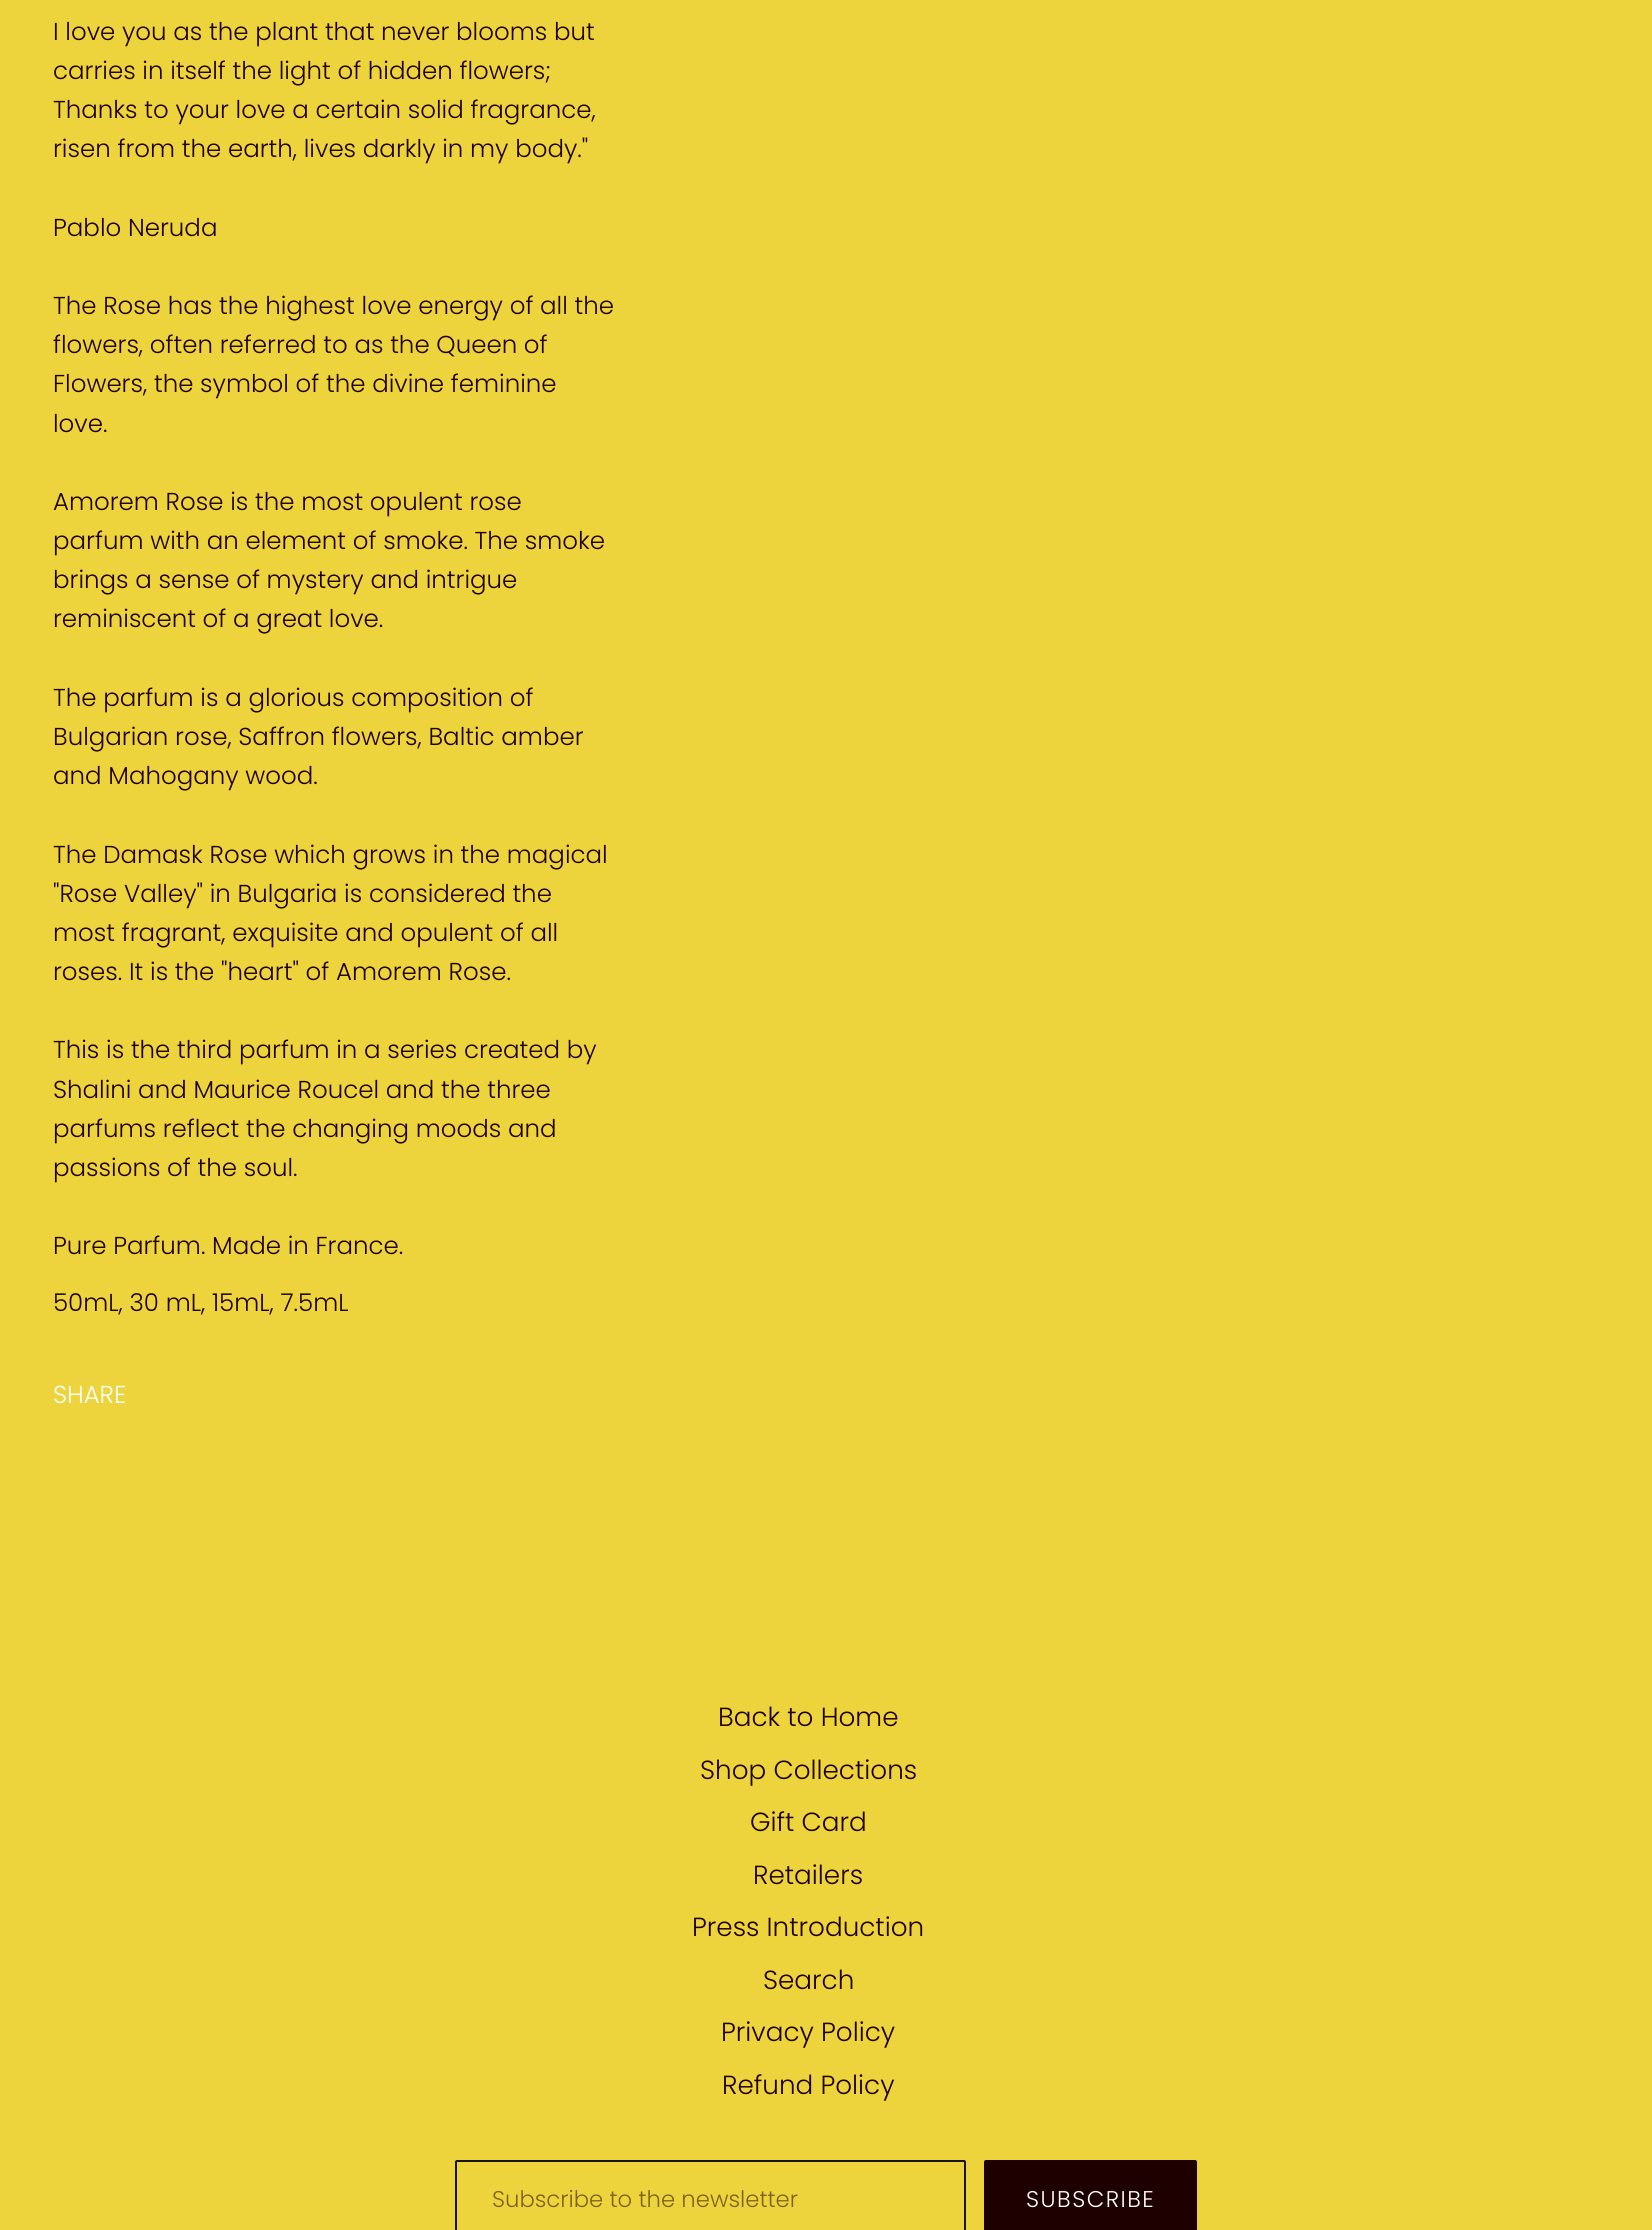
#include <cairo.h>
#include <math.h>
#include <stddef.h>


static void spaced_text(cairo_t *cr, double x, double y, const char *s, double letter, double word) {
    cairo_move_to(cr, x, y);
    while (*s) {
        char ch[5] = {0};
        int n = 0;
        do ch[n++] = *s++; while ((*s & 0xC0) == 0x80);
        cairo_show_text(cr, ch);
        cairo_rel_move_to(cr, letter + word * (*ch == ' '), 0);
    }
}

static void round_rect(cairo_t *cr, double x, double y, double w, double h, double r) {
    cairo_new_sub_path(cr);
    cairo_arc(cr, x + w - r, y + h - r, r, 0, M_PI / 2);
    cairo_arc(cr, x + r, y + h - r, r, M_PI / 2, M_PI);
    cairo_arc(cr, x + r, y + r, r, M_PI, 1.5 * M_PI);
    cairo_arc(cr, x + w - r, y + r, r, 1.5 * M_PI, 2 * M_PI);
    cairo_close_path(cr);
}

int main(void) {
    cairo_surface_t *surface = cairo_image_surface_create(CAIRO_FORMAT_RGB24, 1652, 2230);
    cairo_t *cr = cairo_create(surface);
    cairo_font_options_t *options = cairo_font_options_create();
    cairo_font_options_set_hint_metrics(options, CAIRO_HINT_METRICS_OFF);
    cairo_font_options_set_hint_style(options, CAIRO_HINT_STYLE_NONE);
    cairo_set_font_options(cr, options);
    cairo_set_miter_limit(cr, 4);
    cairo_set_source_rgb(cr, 0.929, 0.831, 0.235);
    cairo_paint(cr);
    cairo_select_font_face(cr, "Poppins Light", CAIRO_FONT_SLANT_NORMAL, CAIRO_FONT_WEIGHT_NORMAL);
    cairo_set_font_size(cr, 24.5);
    cairo_set_source_rgb(cr, 0.122, 0, 0);
    cairo_move_to(cr, 53, 40);
    cairo_show_text(cr, "I love you as the plant that never blooms but");
    cairo_move_to(cr, 53, 79);
    cairo_show_text(cr, "carries in itself the light of hidden flowers;");
    cairo_move_to(cr, 53, 118);
    cairo_show_text(cr, "Thanks to your love a certain solid fragrance,");
    cairo_move_to(cr, 53, 157);
    cairo_show_text(cr, "risen from the earth, lives darkly in my body.\"");
    cairo_move_to(cr, 53, 236);
    cairo_show_text(cr, "Pablo Neruda");
    cairo_move_to(cr, 53, 314);
    cairo_show_text(cr, "The Rose has the highest love energy of all the");
    cairo_move_to(cr, 53, 353);
    cairo_show_text(cr, "flowers, often referred to as the Queen of");
    cairo_move_to(cr, 53, 392);
    cairo_show_text(cr, "Flowers, the symbol of the divine feminine");
    cairo_move_to(cr, 53, 432);
    cairo_show_text(cr, "love.");
    cairo_move_to(cr, 53, 510);
    cairo_show_text(cr, "Amorem Rose is the most opulent rose");
    cairo_move_to(cr, 53, 549);
    cairo_show_text(cr, "parfum with an element of smoke. The smoke");
    cairo_move_to(cr, 53, 588);
    cairo_show_text(cr, "brings a sense of mystery and intrigue");
    cairo_move_to(cr, 53, 627);
    cairo_show_text(cr, "reminiscent of a great love.");
    cairo_move_to(cr, 53, 706);
    cairo_show_text(cr, "The parfum is a glorious composition of");
    cairo_move_to(cr, 53, 745);
    cairo_show_text(cr, "Bulgarian rose, Saffron flowers, Baltic amber");
    cairo_move_to(cr, 53, 784);
    cairo_show_text(cr, "and Mahogany wood.");
    cairo_move_to(cr, 53, 863);
    cairo_show_text(cr, "The Damask Rose which grows in the magical");
    cairo_move_to(cr, 53, 902);
    cairo_show_text(cr, "\"Rose Valley\" in Bulgaria is considered the");
    cairo_move_to(cr, 53, 941);
    cairo_show_text(cr, "most fragrant, exquisite and opulent of all");
    cairo_move_to(cr, 53, 980);
    cairo_show_text(cr, "roses. It is the \"heart\" of Amorem Rose.");
    cairo_move_to(cr, 53, 1058);
    cairo_show_text(cr, "This is the third parfum in a series created by");
    cairo_move_to(cr, 53, 1098);
    cairo_show_text(cr, "Shalini and Maurice Roucel and the three");
    cairo_move_to(cr, 53, 1137);
    cairo_show_text(cr, "parfums reflect the changing moods and");
    cairo_move_to(cr, 53, 1176);
    cairo_show_text(cr, "passions of the soul.");
    cairo_move_to(cr, 53, 1254);
    cairo_show_text(cr, "Pure Parfum. Made in France.");
    cairo_move_to(cr, 53, 1311);
    cairo_show_text(cr, "50mL, 30 mL, 15mL, 7.5mL");
    cairo_set_source_rgb(cr, 1, 1, 1);
    cairo_move_to(cr, 53, 1403);
    cairo_show_text(cr, "SHARE");
    cairo_set_font_size(cr, 26.25);
    cairo_set_source_rgb(cr, 0.122, 0, 0);
    cairo_move_to(cr, 718, 1726);
    cairo_show_text(cr, "Back to Home");
    cairo_move_to(cr, 700, 1779);
    cairo_show_text(cr, "Shop Collections");
    cairo_move_to(cr, 750, 1831);
    cairo_show_text(cr, "Gift Card");
    cairo_move_to(cr, 753, 1884);
    cairo_show_text(cr, "Retailers");
    cairo_move_to(cr, 692, 1936);
    cairo_show_text(cr, "Press Introduction");
    cairo_move_to(cr, 763, 1989);
    cairo_show_text(cr, "Search");
    cairo_move_to(cr, 721, 2041);
    cairo_show_text(cr, "Privacy Policy");
    cairo_move_to(cr, 722, 2094);
    cairo_show_text(cr, "Refund Policy");
    round_rect(cr, 456, 2161, 509, 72, 1);
    cairo_set_source_rgb(cr, 0.094, 0.082, 0.024);
    cairo_stroke(cr);
    cairo_set_font_size(cr, 22.75);
    cairo_set_source_rgb(cr, 0.494, 0.384, 0.11);
    cairo_move_to(cr, 492, 2207);
    cairo_show_text(cr, "Subscribe to the newsletter");
    cairo_set_source_rgb(cr, 0.122, 0, 0);
    round_rect(cr, 984, 2160, 213, 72, 2);
    cairo_fill(cr);
    cairo_set_source_rgb(cr, 1, 1, 1);
    spaced_text(cr, 1026, 2207, "SUBSCRIBE", 1.5, 0);
    cairo_surface_write_to_png(surface, "page.png");
    cairo_font_options_destroy(options);
    cairo_destroy(cr);
    cairo_surface_destroy(surface);
    return 0;
}
